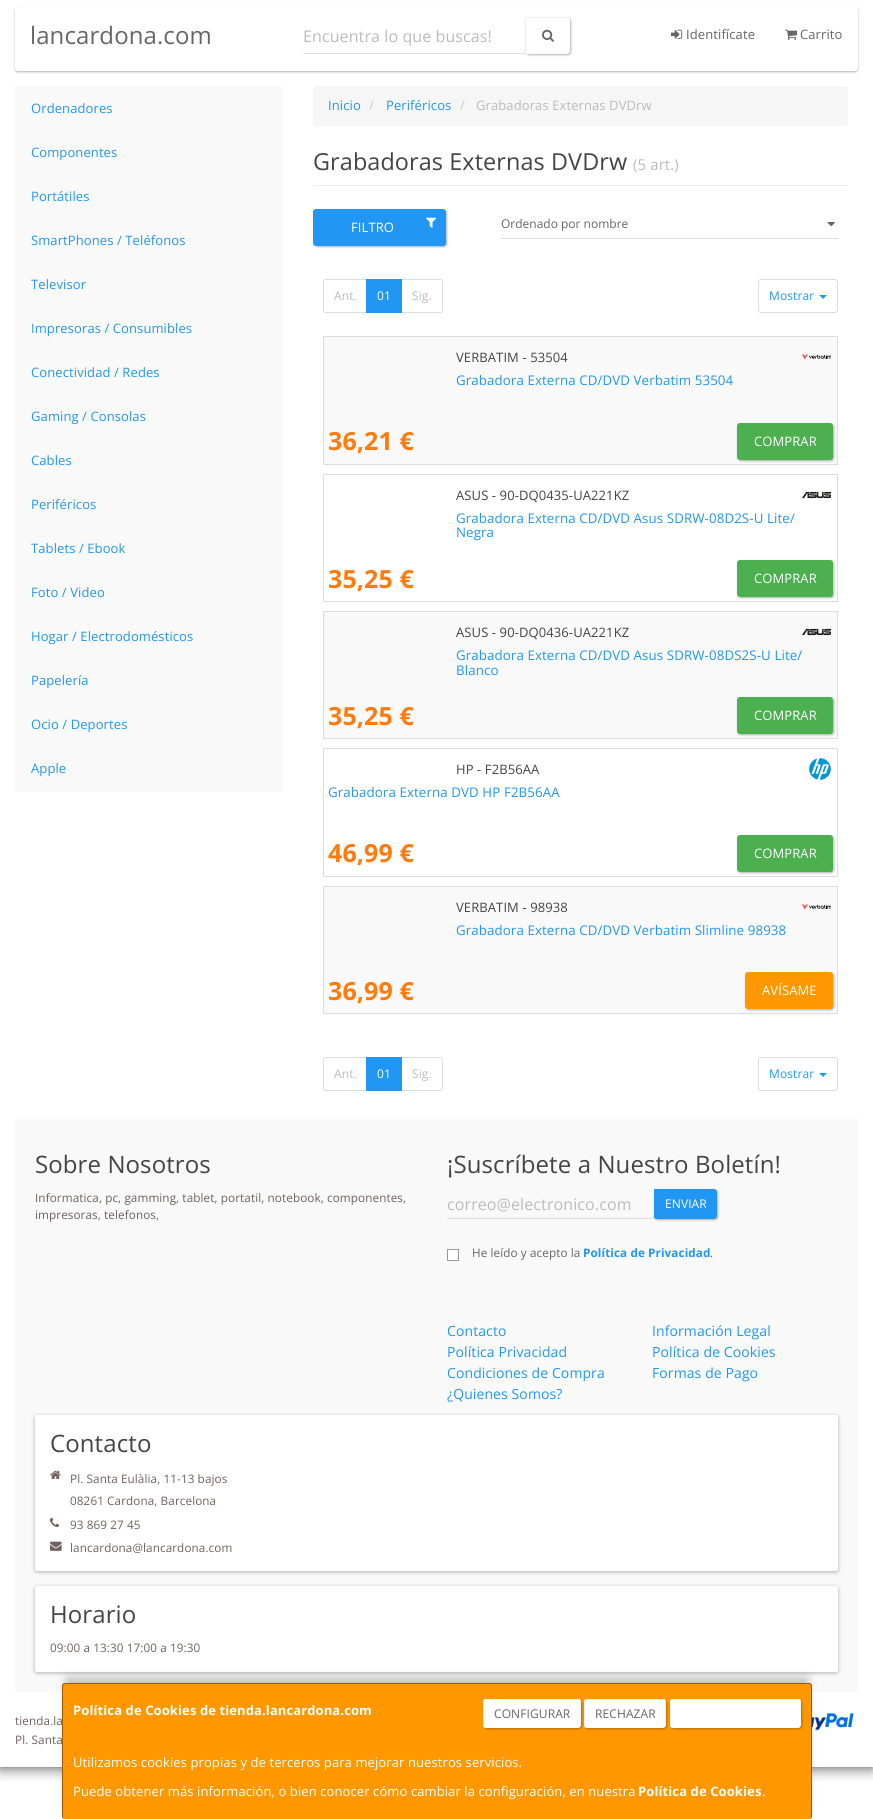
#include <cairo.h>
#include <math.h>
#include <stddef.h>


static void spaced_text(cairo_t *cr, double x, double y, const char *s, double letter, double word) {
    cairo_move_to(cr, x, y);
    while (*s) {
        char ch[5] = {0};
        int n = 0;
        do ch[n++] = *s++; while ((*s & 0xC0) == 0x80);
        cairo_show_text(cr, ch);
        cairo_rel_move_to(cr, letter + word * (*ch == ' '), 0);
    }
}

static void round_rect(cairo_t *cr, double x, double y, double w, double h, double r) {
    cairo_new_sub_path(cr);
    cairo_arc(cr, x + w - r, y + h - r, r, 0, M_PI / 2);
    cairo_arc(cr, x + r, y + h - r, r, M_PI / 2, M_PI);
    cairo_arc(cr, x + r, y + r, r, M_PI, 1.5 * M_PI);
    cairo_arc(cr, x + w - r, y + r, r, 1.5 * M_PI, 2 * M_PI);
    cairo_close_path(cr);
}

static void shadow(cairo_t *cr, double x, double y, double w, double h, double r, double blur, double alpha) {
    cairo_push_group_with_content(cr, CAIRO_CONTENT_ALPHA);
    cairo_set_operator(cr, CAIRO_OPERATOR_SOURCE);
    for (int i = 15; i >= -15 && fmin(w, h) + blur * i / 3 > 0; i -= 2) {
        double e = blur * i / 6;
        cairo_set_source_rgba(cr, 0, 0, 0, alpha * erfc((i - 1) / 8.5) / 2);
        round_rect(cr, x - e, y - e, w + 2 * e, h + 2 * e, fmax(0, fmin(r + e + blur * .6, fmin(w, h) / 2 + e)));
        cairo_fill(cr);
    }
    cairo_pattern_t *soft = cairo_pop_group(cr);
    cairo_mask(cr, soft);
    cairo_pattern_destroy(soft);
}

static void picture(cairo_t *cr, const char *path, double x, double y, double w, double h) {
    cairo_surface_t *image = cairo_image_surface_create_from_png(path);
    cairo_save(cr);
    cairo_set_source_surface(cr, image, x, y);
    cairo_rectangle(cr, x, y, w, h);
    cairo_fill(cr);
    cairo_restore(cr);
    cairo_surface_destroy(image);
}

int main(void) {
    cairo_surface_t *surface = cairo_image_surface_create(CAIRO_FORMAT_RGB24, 873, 1819);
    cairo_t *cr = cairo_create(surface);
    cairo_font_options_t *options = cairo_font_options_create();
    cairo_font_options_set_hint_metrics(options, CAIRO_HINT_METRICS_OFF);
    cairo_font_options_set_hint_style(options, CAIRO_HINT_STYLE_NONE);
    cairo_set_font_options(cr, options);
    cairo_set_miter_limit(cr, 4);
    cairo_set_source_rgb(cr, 1, 1, 1);
    cairo_paint(cr);
    cairo_save(cr);
    cairo_rectangle(cr, 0, 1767, 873, 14);
    cairo_clip(cr);
    cairo_set_source_rgb(cr, 0, 0, 0);
    shadow(cr, 0, 0, 873, 1767, 0, 7.5, 0.75);
    cairo_restore(cr);
    cairo_set_source_rgb(cr, 0, 0, 0);
    shadow(cr, 15, 8, 843, 64, 3, 1, 0.3);
    cairo_set_source_rgb(cr, 1, 1, 1);
    round_rect(cr, 15, 7, 843, 64, 3);
    cairo_fill(cr);
    cairo_select_font_face(cr, "Open Sans", CAIRO_FONT_SLANT_NORMAL, CAIRO_FONT_WEIGHT_NORMAL);
    cairo_set_font_size(cr, 24);
    cairo_set_source_rgb(cr, 0.4, 0.4, 0.4);
    spaced_text(cr, 30, 44, "lancardona.com", 0.1, 0);
    cairo_set_source_rgb(cr, 0, 0, 0);
    shadow(cr, 526, 18, 45, 37, 3, 1, 0.3);
    cairo_set_source_rgb(cr, 1, 1, 1);
    cairo_new_path(cr);
    cairo_move_to(cr, 525, 17);
    cairo_line_to(cr, 567, 17);
    cairo_curve_to(cr, 568.5, 17, 570, 18.5, 570, 20);
    cairo_line_to(cr, 570, 51);
    cairo_curve_to(cr, 570, 52.5, 568.5, 54, 567, 54);
    cairo_line_to(cr, 525, 54);
    cairo_close_path(cr);
    cairo_fill(cr);
    cairo_set_source_rgb(cr, 0.933, 0.933, 0.933);
    cairo_rectangle(cr, 525, 17, 44, 1);
    cairo_fill(cr);
    cairo_rectangle(cr, 525, 17, 1, 37);
    cairo_fill(cr);
    cairo_set_source_rgb(cr, 0.867, 0.867, 0.867);
    cairo_rectangle(cr, 303, 53, 223, 1);
    cairo_fill(cr);
    cairo_set_font_size(cr, 16);
    cairo_set_source_rgb(cr, 0.733, 0.733, 0.733);
    spaced_text(cr, 303, 42, "Encuentra lo que buscas!", 0.1, 0);
    picture(cr, "img1.png", 542, 29, 12, 13);
    picture(cr, "img2.png", 671, 29, 12, 10);
    cairo_set_font_size(cr, 13);
    cairo_set_source_rgb(cr, 0.4, 0.4, 0.4);
    spaced_text(cr, 686, 39, "Identifícate", 0.1, 0);
    picture(cr, "img3.png", 785, 29, 13, 11);
    spaced_text(cr, 800, 39, "Carrito", 0.1, 0);
    cairo_set_source_rgb(cr, 0.976, 0.976, 0.976);
    cairo_rectangle(cr, 15, 86, 268, 706);
    cairo_fill(cr);
    cairo_set_source_rgb(cr, 0.129, 0.588, 0.953);
    spaced_text(cr, 31, 113, "Ordenadores", 0.1, 0);
    spaced_text(cr, 31, 157, "Componentes", 0.1, 0);
    spaced_text(cr, 31, 201, "Portátiles", 0.1, 0);
    spaced_text(cr, 31, 245, "SmartPhones / Teléfonos", 0.1, 0);
    spaced_text(cr, 31, 289, "Televisor", 0.1, 0);
    spaced_text(cr, 31, 333, "Impresoras / Consumibles", 0.1, 0);
    spaced_text(cr, 31, 377, "Conectividad / Redes", 0.1, 0);
    spaced_text(cr, 31, 421, "Gaming / Consolas", 0.1, 0);
    spaced_text(cr, 31, 465, "Cables", 0.1, 0);
    spaced_text(cr, 31, 509, "Periféricos", 0.1, 0);
    spaced_text(cr, 31, 553, "Tablets / Ebook", 0.1, 0);
    spaced_text(cr, 31, 597, "Foto / Video", 0.1, 0);
    spaced_text(cr, 31, 641, "Hogar / Electrodomésticos", 0.1, 0);
    spaced_text(cr, 31, 685, "Papelería", 0.1, 0);
    spaced_text(cr, 31, 729, "Ocio / Deportes", 0.1, 0);
    spaced_text(cr, 31, 773, "Apple", 0.1, 0);
    cairo_set_source_rgb(cr, 0.961, 0.961, 0.961);
    round_rect(cr, 313, 86, 535, 40, 3);
    cairo_fill(cr);
    cairo_set_source_rgb(cr, 0.129, 0.588, 0.953);
    spaced_text(cr, 328, 110, "Inicio", 0.1, 0);
    cairo_set_source_rgb(cr, 0.8, 0.8, 0.8);
    spaced_text(cr, 369, 110, "/", 0.1, 0);
    cairo_set_source_rgb(cr, 0.129, 0.588, 0.953);
    spaced_text(cr, 386, 110, "Periféricos", 0.1, 0);
    cairo_set_source_rgb(cr, 0.8, 0.8, 0.8);
    spaced_text(cr, 460, 110, "/", 0.1, 0);
    cairo_set_source_rgb(cr, 0.733, 0.733, 0.733);
    spaced_text(cr, 476, 110, "Grabadoras Externas DVDrw", 0.1, 0);
    cairo_set_source_rgb(cr, 0.933, 0.933, 0.933);
    cairo_rectangle(cr, 313, 185, 535, 1);
    cairo_fill(cr);
    cairo_set_font_size(cr, 23.4);
    cairo_set_source_rgb(cr, 0.267, 0.267, 0.267);
    spaced_text(cr, 313, 170, "Grabadoras Externas DVDrw", 0.1, 0);
    cairo_set_font_size(cr, 15);
    cairo_set_source_rgb(cr, 0.733, 0.733, 0.733);
    spaced_text(cr, 633, 170, "(5 art.)", 0.1, 0);
    cairo_set_source_rgb(cr, 0, 0, 0);
    shadow(cr, 314, 210, 133, 37, 3, 1, 0.3);
    cairo_set_source_rgb(cr, 0.129, 0.588, 0.953);
    round_rect(cr, 313, 209, 133, 37, 3);
    cairo_fill(cr);
    cairo_set_font_size(cr, 13);
    cairo_set_source_rgb(cr, 1, 1, 1);
    spaced_text(cr, 351, 232, "FILTRO", 0.1, 0);
    picture(cr, "img4.png", 426, 217, 11, 11);
    picture(cr, "img5.png", 827, 222, 8, 5);
    cairo_set_source_rgb(cr, 0.867, 0.867, 0.867);
    cairo_rectangle(cr, 501, 238, 337, 1);
    cairo_fill(cr);
    cairo_set_font_size(cr, 12);
    cairo_set_source_rgb(cr, 0.4, 0.4, 0.4);
    cairo_move_to(cr, 501, 228);
    cairo_show_text(cr, "Ordenado por nombre");
    cairo_new_path(cr);
    cairo_move_to(cr, 326, 279.5);
    cairo_line_to(cr, 366.5, 279.5);
    cairo_line_to(cr, 366.5, 312.5);
    cairo_line_to(cr, 326, 312.5);
    cairo_curve_to(cr, 324.5, 312.5, 323.5, 311.5, 323.5, 310);
    cairo_line_to(cr, 323.5, 282);
    cairo_curve_to(cr, 323.5, 280.5, 324.5, 279.5, 326, 279.5);
    cairo_close_path(cr);
    cairo_set_source_rgb(cr, 0.867, 0.867, 0.867);
    cairo_set_line_width(cr, 1);
    cairo_stroke(cr);
    cairo_set_source_rgb(cr, 0.733, 0.733, 0.733);
    spaced_text(cr, 334, 300, "Ant.", 0.1, 0);
    cairo_new_path(cr);
    cairo_move_to(cr, 401.5, 279.5);
    cairo_line_to(cr, 440, 279.5);
    cairo_curve_to(cr, 441.5, 279.5, 442.5, 280.5, 442.5, 282);
    cairo_line_to(cr, 442.5, 310);
    cairo_curve_to(cr, 442.5, 311.5, 441.5, 312.5, 440, 312.5);
    cairo_line_to(cr, 401.5, 312.5);
    cairo_close_path(cr);
    cairo_set_source_rgb(cr, 0.867, 0.867, 0.867);
    cairo_stroke(cr);
    cairo_set_source_rgb(cr, 0.129, 0.588, 0.953);
    cairo_rectangle(cr, 366, 279, 36, 34);
    cairo_fill(cr);
    cairo_set_source_rgb(cr, 1, 1, 1);
    spaced_text(cr, 377, 300, "01", 0.1, 0);
    cairo_set_source_rgb(cr, 0.733, 0.733, 0.733);
    spaced_text(cr, 412, 300, "Sig.", 0.1, 0);
    round_rect(cr, 758.5, 279.5, 79, 33, 2.5);
    cairo_set_source_rgb(cr, 0.867, 0.867, 0.867);
    cairo_stroke(cr);
    cairo_set_source_rgb(cr, 0.129, 0.588, 0.953);
    spaced_text(cr, 769, 300, "Mostrar", 0.1, 0);
    cairo_new_path(cr);
    cairo_move_to(cr, 819, 295);
    cairo_line_to(cr, 827, 295);
    cairo_line_to(cr, 823, 299);
    cairo_close_path(cr);
    cairo_fill(cr);
    cairo_set_source_rgb(cr, 0.976, 0.976, 0.976);
    cairo_rectangle(cr, 323.5, 336.5, 514, 128);
    cairo_fill_preserve(cr);
    cairo_set_source_rgb(cr, 0.867, 0.867, 0.867);
    cairo_stroke(cr);
    cairo_set_font_size(cr, 13);
    cairo_set_source_rgb(cr, 0.267, 0.267, 0.267);
    spaced_text(cr, 456, 362, "VERBATIM - 53504", 0.1, 0);
    cairo_set_font_size(cr, 13.3);
    cairo_set_source_rgb(cr, 0.129, 0.588, 0.953);
    spaced_text(cr, 456, 385, "Grabadora Externa CD/DVD Verbatim 53504", 0.1, 0);
    cairo_select_font_face(cr, "Open Sans", CAIRO_FONT_SLANT_NORMAL, CAIRO_FONT_WEIGHT_BOLD);
    cairo_set_font_size(cr, 25);
    cairo_set_source_rgb(cr, 1, 0.482, 0.051);
    spaced_text(cr, 328, 450, "36,21 €", 0.1, 0);
    cairo_set_source_rgb(cr, 0, 0, 0);
    shadow(cr, 738, 424, 96, 37, 3, 1, 0.3);
    cairo_set_source_rgb(cr, 0.298, 0.686, 0.314);
    round_rect(cr, 737, 423, 96, 37, 3);
    cairo_fill(cr);
    cairo_select_font_face(cr, "Open Sans", CAIRO_FONT_SLANT_NORMAL, CAIRO_FONT_WEIGHT_NORMAL);
    cairo_set_font_size(cr, 13);
    cairo_set_source_rgb(cr, 1, 1, 1);
    spaced_text(cr, 754, 446, "COMPRAR", 0.1, 0);
    picture(cr, "img6.png", 802, 354, 29, 6);
    cairo_rectangle(cr, 323.5, 474.5, 514, 127);
    cairo_set_source_rgb(cr, 0.867, 0.867, 0.867);
    cairo_stroke(cr);
    cairo_set_source_rgb(cr, 0.267, 0.267, 0.267);
    spaced_text(cr, 456, 500, "ASUS - 90-DQ0435-UA221KZ", 0.1, 0);
    cairo_set_font_size(cr, 13.3);
    cairo_set_source_rgb(cr, 0.129, 0.588, 0.953);
    spaced_text(cr, 456, 523, "Grabadora Externa CD/DVD Asus SDRW-08D2S-U Lite/", 0.1, 0);
    spaced_text(cr, 456, 537, "Negra", 0.1, 0);
    cairo_select_font_face(cr, "Open Sans", CAIRO_FONT_SLANT_NORMAL, CAIRO_FONT_WEIGHT_BOLD);
    cairo_set_font_size(cr, 25);
    cairo_set_source_rgb(cr, 1, 0.482, 0.051);
    spaced_text(cr, 328, 588, "35,25 €", 0.1, 0);
    cairo_set_source_rgb(cr, 0, 0, 0);
    shadow(cr, 738, 561, 96, 37, 3, 1, 0.3);
    cairo_set_source_rgb(cr, 0.298, 0.686, 0.314);
    round_rect(cr, 737, 560, 96, 37, 3);
    cairo_fill(cr);
    cairo_select_font_face(cr, "Open Sans", CAIRO_FONT_SLANT_NORMAL, CAIRO_FONT_WEIGHT_NORMAL);
    cairo_set_font_size(cr, 13);
    cairo_set_source_rgb(cr, 1, 1, 1);
    spaced_text(cr, 754, 583, "COMPRAR", 0.1, 0);
    picture(cr, "img7.png", 802, 491, 29, 8);
    cairo_set_source_rgb(cr, 0.976, 0.976, 0.976);
    cairo_rectangle(cr, 323.5, 611.5, 514, 127);
    cairo_fill_preserve(cr);
    cairo_set_source_rgb(cr, 0.867, 0.867, 0.867);
    cairo_stroke(cr);
    cairo_set_source_rgb(cr, 0.267, 0.267, 0.267);
    spaced_text(cr, 456, 637, "ASUS - 90-DQ0436-UA221KZ", 0.1, 0);
    cairo_set_font_size(cr, 13.3);
    cairo_set_source_rgb(cr, 0.129, 0.588, 0.953);
    spaced_text(cr, 456, 660, "Grabadora Externa CD/DVD Asus SDRW-08DS2S-U Lite/", 0.1, 0);
    spaced_text(cr, 456, 675, "Blanco", 0.1, 0);
    cairo_select_font_face(cr, "Open Sans", CAIRO_FONT_SLANT_NORMAL, CAIRO_FONT_WEIGHT_BOLD);
    cairo_set_font_size(cr, 25);
    cairo_set_source_rgb(cr, 1, 0.482, 0.051);
    spaced_text(cr, 328, 725, "35,25 €", 0.1, 0);
    cairo_set_source_rgb(cr, 0, 0, 0);
    shadow(cr, 738, 698, 96, 37, 3, 1, 0.3);
    cairo_set_source_rgb(cr, 0.298, 0.686, 0.314);
    round_rect(cr, 737, 697, 96, 37, 3);
    cairo_fill(cr);
    cairo_select_font_face(cr, "Open Sans", CAIRO_FONT_SLANT_NORMAL, CAIRO_FONT_WEIGHT_NORMAL);
    cairo_set_font_size(cr, 13);
    cairo_set_source_rgb(cr, 1, 1, 1);
    spaced_text(cr, 754, 720, "COMPRAR", 0.1, 0);
    picture(cr, "img8.png", 802, 628, 29, 8);
    cairo_rectangle(cr, 323.5, 748.5, 514, 128);
    cairo_set_source_rgb(cr, 0.867, 0.867, 0.867);
    cairo_stroke(cr);
    cairo_set_source_rgb(cr, 0.267, 0.267, 0.267);
    spaced_text(cr, 456, 774, "HP - F2B56AA", 0.1, 0);
    cairo_set_font_size(cr, 13.3);
    cairo_set_source_rgb(cr, 0.129, 0.588, 0.953);
    spaced_text(cr, 328, 797, "Grabadora Externa DVD HP F2B56AA", 0.1, 0);
    cairo_select_font_face(cr, "Open Sans", CAIRO_FONT_SLANT_NORMAL, CAIRO_FONT_WEIGHT_BOLD);
    cairo_set_font_size(cr, 25);
    cairo_set_source_rgb(cr, 1, 0.482, 0.051);
    spaced_text(cr, 328, 862, "46,99 €", 0.1, 0);
    cairo_set_source_rgb(cr, 0, 0, 0);
    shadow(cr, 738, 836, 96, 37, 3, 1, 0.3);
    cairo_set_source_rgb(cr, 0.298, 0.686, 0.314);
    round_rect(cr, 737, 835, 96, 37, 3);
    cairo_fill(cr);
    cairo_select_font_face(cr, "Open Sans", CAIRO_FONT_SLANT_NORMAL, CAIRO_FONT_WEIGHT_NORMAL);
    cairo_set_font_size(cr, 13);
    cairo_set_source_rgb(cr, 1, 1, 1);
    spaced_text(cr, 754, 858, "COMPRAR", 0.1, 0);
    picture(cr, "img9.png", 809, 758, 22, 22);
    cairo_set_source_rgb(cr, 0.976, 0.976, 0.976);
    cairo_rectangle(cr, 323.5, 886.5, 514, 127);
    cairo_fill_preserve(cr);
    cairo_set_source_rgb(cr, 0.867, 0.867, 0.867);
    cairo_stroke(cr);
    cairo_set_source_rgb(cr, 0.267, 0.267, 0.267);
    spaced_text(cr, 456, 912, "VERBATIM - 98938", 0.1, 0);
    cairo_set_font_size(cr, 13.3);
    cairo_set_source_rgb(cr, 0.129, 0.588, 0.953);
    spaced_text(cr, 456, 935, "Grabadora Externa CD/DVD Verbatim Slimline 98938", 0.1, 0);
    cairo_select_font_face(cr, "Open Sans", CAIRO_FONT_SLANT_NORMAL, CAIRO_FONT_WEIGHT_BOLD);
    cairo_set_font_size(cr, 25);
    cairo_set_source_rgb(cr, 1, 0.482, 0.051);
    spaced_text(cr, 328, 1000, "36,99 €", 0.1, 0);
    cairo_set_source_rgb(cr, 0, 0, 0);
    shadow(cr, 746, 973, 88, 37, 3, 1, 0.3);
    cairo_set_source_rgb(cr, 1, 0.596, 0);
    round_rect(cr, 745, 972, 88, 37, 3);
    cairo_fill(cr);
    cairo_select_font_face(cr, "Open Sans", CAIRO_FONT_SLANT_NORMAL, CAIRO_FONT_WEIGHT_NORMAL);
    cairo_set_font_size(cr, 13);
    cairo_set_source_rgb(cr, 1, 1, 1);
    spaced_text(cr, 762, 995, "AVÍSAME", 0.1, 0);
    picture(cr, "img6.png", 802, 904, 29, 6);
    cairo_new_path(cr);
    cairo_move_to(cr, 326, 1057.5);
    cairo_line_to(cr, 366.5, 1057.5);
    cairo_line_to(cr, 366.5, 1090.5);
    cairo_line_to(cr, 326, 1090.5);
    cairo_curve_to(cr, 324.5, 1090.5, 323.5, 1089.5, 323.5, 1088);
    cairo_line_to(cr, 323.5, 1060);
    cairo_curve_to(cr, 323.5, 1058.5, 324.5, 1057.5, 326, 1057.5);
    cairo_close_path(cr);
    cairo_set_source_rgb(cr, 0.867, 0.867, 0.867);
    cairo_stroke(cr);
    cairo_set_font_size(cr, 12);
    cairo_set_source_rgb(cr, 0.733, 0.733, 0.733);
    spaced_text(cr, 334, 1078, "Ant.", 0.1, 0);
    cairo_new_path(cr);
    cairo_move_to(cr, 401.5, 1057.5);
    cairo_line_to(cr, 440, 1057.5);
    cairo_curve_to(cr, 441.5, 1057.5, 442.5, 1058.5, 442.5, 1060);
    cairo_line_to(cr, 442.5, 1088);
    cairo_curve_to(cr, 442.5, 1089.5, 441.5, 1090.5, 440, 1090.5);
    cairo_line_to(cr, 401.5, 1090.5);
    cairo_close_path(cr);
    cairo_set_source_rgb(cr, 0.867, 0.867, 0.867);
    cairo_stroke(cr);
    cairo_set_source_rgb(cr, 0.129, 0.588, 0.953);
    cairo_rectangle(cr, 366, 1057, 36, 34);
    cairo_fill(cr);
    cairo_set_source_rgb(cr, 1, 1, 1);
    spaced_text(cr, 377, 1078, "01", 0.1, 0);
    cairo_set_source_rgb(cr, 0.733, 0.733, 0.733);
    spaced_text(cr, 412, 1078, "Sig.", 0.1, 0);
    round_rect(cr, 758.5, 1057.5, 79, 33, 2.5);
    cairo_set_source_rgb(cr, 0.867, 0.867, 0.867);
    cairo_stroke(cr);
    cairo_set_source_rgb(cr, 0.129, 0.588, 0.953);
    spaced_text(cr, 769, 1078, "Mostrar", 0.1, 0);
    cairo_new_path(cr);
    cairo_move_to(cr, 819, 1073);
    cairo_line_to(cr, 827, 1073);
    cairo_line_to(cr, 823, 1077);
    cairo_close_path(cr);
    cairo_fill(cr);
    cairo_set_source_rgb(cr, 0.976, 0.976, 0.976);
    cairo_rectangle(cr, 15, 1119, 843, 573);
    cairo_fill(cr);
    cairo_set_font_size(cr, 24);
    cairo_set_source_rgb(cr, 0.267, 0.267, 0.267);
    spaced_text(cr, 35, 1173, "Sobre Nosotros", 0.1, 0);
    cairo_set_font_size(cr, 11.7);
    cairo_set_source_rgb(cr, 0.439, 0.376, 0.376);
    spaced_text(cr, 35, 1202, "Informatica, pc, gamming, tablet, portatil, notebook, componentes,", 0.1, 0);
    spaced_text(cr, 35, 1219, "impresoras, telefonos,", 0.1, 0);
    cairo_set_font_size(cr, 24);
    cairo_set_source_rgb(cr, 0.267, 0.267, 0.267);
    spaced_text(cr, 447, 1173, "¡Suscríbete a Nuestro Boletín!", 0.1, 0);
    cairo_set_source_rgb(cr, 0, 0, 0);
    shadow(cr, 655, 1190, 63, 30, 3, 1, 0.3);
    cairo_set_source_rgb(cr, 0.129, 0.588, 0.953);
    cairo_new_path(cr);
    cairo_move_to(cr, 654, 1189);
    cairo_line_to(cr, 714, 1189);
    cairo_curve_to(cr, 715.5, 1189, 717, 1190.5, 717, 1192);
    cairo_line_to(cr, 717, 1216);
    cairo_curve_to(cr, 717, 1217.5, 715.5, 1219, 714, 1219);
    cairo_line_to(cr, 654, 1219);
    cairo_close_path(cr);
    cairo_fill(cr);
    cairo_set_source_rgb(cr, 0.867, 0.867, 0.867);
    cairo_rectangle(cr, 447, 1218, 208, 1);
    cairo_fill(cr);
    cairo_set_font_size(cr, 16);
    cairo_set_source_rgb(cr, 0.733, 0.733, 0.733);
    spaced_text(cr, 447, 1210, "correo@electronico.com", 0.1, 0);
    cairo_set_font_size(cr, 12);
    cairo_set_source_rgb(cr, 1, 1, 1);
    spaced_text(cr, 665, 1208, "ENVIAR", 0.1, 0);
    cairo_rectangle(cr, 447.5, 1249.5, 11, 11);
    cairo_fill_preserve(cr);
    cairo_set_source_rgb(cr, 0.6, 0.6, 0.6);
    cairo_stroke(cr);
    cairo_set_font_size(cr, 11.7);
    cairo_set_source_rgb(cr, 0.4, 0.4, 0.4);
    spaced_text(cr, 472, 1257, "He leído y acepto la", 0.1, 0);
    cairo_select_font_face(cr, "Open Sans", CAIRO_FONT_SLANT_NORMAL, CAIRO_FONT_WEIGHT_BOLD);
    cairo_set_source_rgb(cr, 0.129, 0.588, 0.953);
    spaced_text(cr, 583, 1257, "Política de Privacidad", 0.1, 0);
    cairo_select_font_face(cr, "Open Sans", CAIRO_FONT_SLANT_NORMAL, CAIRO_FONT_WEIGHT_NORMAL);
    cairo_set_source_rgb(cr, 0.4, 0.4, 0.4);
    spaced_text(cr, 710, 1257, ".", 0.1, 0);
    cairo_set_font_size(cr, 14);
    cairo_set_source_rgb(cr, 0.129, 0.588, 0.953);
    spaced_text(cr, 447, 1336, "Contacto", 0.1, 0);
    spaced_text(cr, 652, 1336, "Información Legal", 0.1, 0);
    spaced_text(cr, 447, 1357, "Política Privacidad", 0.1, 0);
    spaced_text(cr, 652, 1357, "Política de Cookies", 0.1, 0);
    spaced_text(cr, 447, 1378, "Condiciones de Compra", 0.1, 0);
    spaced_text(cr, 652, 1378, "Formas de Pago", 0.1, 0);
    spaced_text(cr, 447, 1399, "¿Quienes Somos?", 0.1, 0);
    cairo_set_source_rgb(cr, 0, 0, 0);
    shadow(cr, 35, 1416, 803, 156, 2, 2, 0.3);
    cairo_set_source_rgb(cr, 1, 1, 1);
    round_rect(cr, 35, 1415, 803, 156, 2);
    cairo_fill(cr);
    cairo_set_font_size(cr, 24);
    cairo_set_source_rgb(cr, 0.267, 0.267, 0.267);
    spaced_text(cr, 50, 1452, "Contacto", 0.1, 0);
    picture(cr, "img10.png", 50, 1470, 11, 9);
    cairo_set_font_size(cr, 11.7);
    cairo_set_source_rgb(cr, 0.439, 0.376, 0.376);
    spaced_text(cr, 70, 1483, "Pl. Santa Eulàlia, 11-13 bajos", 0.1, 0);
    spaced_text(cr, 70, 1505, "08261 Cardona, Barcelona", 0.1, 0);
    picture(cr, "img11.png", 50, 1517, 10, 10);
    spaced_text(cr, 70, 1529, "93 869 27 45", 0.1, 0);
    picture(cr, "img12.png", 50, 1541, 12, 10);
    spaced_text(cr, 70, 1552, "lancardona@lancardona.com", 0.1, 0);
    cairo_set_source_rgb(cr, 0, 0, 0);
    shadow(cr, 35, 1587, 803, 86, 2, 2, 0.3);
    cairo_set_source_rgb(cr, 1, 1, 1);
    round_rect(cr, 35, 1586, 803, 86, 2);
    cairo_fill(cr);
    cairo_set_font_size(cr, 24);
    cairo_set_source_rgb(cr, 0.267, 0.267, 0.267);
    spaced_text(cr, 50, 1623, "Horario", 0.1, 0);
    cairo_set_font_size(cr, 11.7);
    cairo_set_source_rgb(cr, 0.439, 0.376, 0.376);
    spaced_text(cr, 50, 1652, "09:00 a 13:30 17:00 a 19:30", 0.1, 0);
    spaced_text(cr, 15, 1725, "tienda.la", 0.1, 0);
    picture(cr, "img13.png", 812, 1712, 42, 19);
    spaced_text(cr, 15, 1744, "Pl. Santa", 0.1, 0);
    cairo_set_source_rgb(cr, 0, 0, 0);
    shadow(cr, 67, 1678, 740, 126, 0, 5, 0.25);
    cairo_set_source_rgb(cr, 1, 0.596, 0);
    round_rect(cr, 62, 1683, 750, 136, 3);
    cairo_fill(cr);
    cairo_set_source_rgba(cr, 0, 0, 0, 0.4);
    cairo_set_fill_rule(cr, CAIRO_FILL_RULE_EVEN_ODD);
    cairo_new_path(cr);
    cairo_move_to(cr, 65, 1683);
    cairo_line_to(cr, 809, 1683);
    cairo_curve_to(cr, 811, 1683, 812, 1684, 812, 1686);
    cairo_line_to(cr, 812, 1816);
    cairo_curve_to(cr, 812, 1818, 811, 1819, 809, 1819);
    cairo_line_to(cr, 65, 1819);
    cairo_curve_to(cr, 63, 1819, 62, 1818, 62, 1816);
    cairo_line_to(cr, 62, 1686);
    cairo_curve_to(cr, 62, 1684, 63, 1683, 65, 1683);
    cairo_close_path(cr);
    cairo_move_to(cr, 65, 1684);
    cairo_line_to(cr, 809, 1684);
    cairo_curve_to(cr, 810, 1684, 811, 1685, 811, 1686);
    cairo_line_to(cr, 811, 1816);
    cairo_curve_to(cr, 811, 1818, 810, 1819, 809, 1819);
    cairo_line_to(cr, 65, 1819);
    cairo_curve_to(cr, 64, 1819, 63, 1818, 63, 1816);
    cairo_line_to(cr, 63, 1686);
    cairo_curve_to(cr, 63, 1685, 64, 1684, 65, 1684);
    cairo_close_path(cr);
    cairo_fill(cr);
    cairo_select_font_face(cr, "Open Sans", CAIRO_FONT_SLANT_NORMAL, CAIRO_FONT_WEIGHT_BOLD);
    cairo_set_font_size(cr, 13);
    cairo_set_source_rgb(cr, 1, 1, 1);
    spaced_text(cr, 73, 1715, "Política de Cookies de tienda.lancardona.com", 0.1, 0);
    cairo_set_source_rgb(cr, 0, 0, 0);
    shadow(cr, 484, 1700, 98, 29, 3, 1, 0.3);
    cairo_set_source_rgb(cr, 1, 1, 1);
    round_rect(cr, 483, 1699, 98, 29, 3);
    cairo_fill(cr);
    cairo_set_source_rgb(cr, 0.933, 0.933, 0.933);
    cairo_new_path(cr);
    cairo_move_to(cr, 486, 1699);
    cairo_line_to(cr, 578, 1699);
    cairo_curve_to(cr, 580, 1699, 581, 1700, 581, 1702);
    cairo_line_to(cr, 581, 1725);
    cairo_curve_to(cr, 581, 1727, 580, 1728, 578, 1728);
    cairo_line_to(cr, 486, 1728);
    cairo_curve_to(cr, 484, 1728, 483, 1727, 483, 1725);
    cairo_line_to(cr, 483, 1702);
    cairo_curve_to(cr, 483, 1700, 484, 1699, 486, 1699);
    cairo_close_path(cr);
    cairo_move_to(cr, 486, 1700);
    cairo_line_to(cr, 578, 1700);
    cairo_curve_to(cr, 580, 1700, 581, 1701, 581, 1702);
    cairo_line_to(cr, 581, 1725);
    cairo_curve_to(cr, 581, 1727, 580, 1728, 578, 1728);
    cairo_line_to(cr, 486, 1728);
    cairo_curve_to(cr, 485, 1728, 484, 1727, 484, 1725);
    cairo_line_to(cr, 484, 1702);
    cairo_curve_to(cr, 484, 1701, 485, 1700, 486, 1700);
    cairo_close_path(cr);
    cairo_fill(cr);
    cairo_select_font_face(cr, "Open Sans", CAIRO_FONT_SLANT_NORMAL, CAIRO_FONT_WEIGHT_NORMAL);
    cairo_set_font_size(cr, 12);
    cairo_set_source_rgb(cr, 0.4, 0.4, 0.4);
    spaced_text(cr, 494, 1718, "CONFIGURAR", 0.1, 0);
    cairo_set_source_rgb(cr, 0, 0, 0);
    shadow(cr, 585, 1700, 82, 29, 3, 1, 0.3);
    cairo_set_source_rgb(cr, 1, 1, 1);
    round_rect(cr, 584, 1699, 82, 29, 3);
    cairo_fill(cr);
    cairo_set_source_rgb(cr, 0.933, 0.933, 0.933);
    cairo_new_path(cr);
    cairo_move_to(cr, 587, 1699);
    cairo_line_to(cr, 663, 1699);
    cairo_curve_to(cr, 665, 1699, 666, 1700, 666, 1702);
    cairo_line_to(cr, 666, 1725);
    cairo_curve_to(cr, 666, 1727, 665, 1728, 663, 1728);
    cairo_line_to(cr, 587, 1728);
    cairo_curve_to(cr, 585, 1728, 584, 1727, 584, 1725);
    cairo_line_to(cr, 584, 1702);
    cairo_curve_to(cr, 584, 1700, 585, 1699, 587, 1699);
    cairo_close_path(cr);
    cairo_move_to(cr, 587, 1700);
    cairo_line_to(cr, 663, 1700);
    cairo_curve_to(cr, 665, 1700, 666, 1701, 666, 1702);
    cairo_line_to(cr, 666, 1725);
    cairo_curve_to(cr, 666, 1727, 665, 1728, 663, 1728);
    cairo_line_to(cr, 587, 1728);
    cairo_curve_to(cr, 586, 1728, 585, 1727, 585, 1725);
    cairo_line_to(cr, 585, 1702);
    cairo_curve_to(cr, 585, 1701, 586, 1700, 587, 1700);
    cairo_close_path(cr);
    cairo_fill(cr);
    cairo_set_source_rgb(cr, 0.4, 0.4, 0.4);
    spaced_text(cr, 595, 1718, "RECHAZAR", 0.1, 0);
    cairo_set_source_rgb(cr, 0, 0, 0);
    shadow(cr, 671, 1700, 131, 29, 3, 1, 0.3);
    cairo_set_source_rgb(cr, 1, 1, 1);
    round_rect(cr, 670, 1699, 131, 29, 3);
    cairo_fill(cr);
    cairo_set_source_rgb(cr, 0.933, 0.933, 0.933);
    cairo_new_path(cr);
    cairo_move_to(cr, 673, 1699);
    cairo_line_to(cr, 798, 1699);
    cairo_curve_to(cr, 800, 1699, 801, 1700, 801, 1702);
    cairo_line_to(cr, 801, 1725);
    cairo_curve_to(cr, 801, 1727, 800, 1728, 798, 1728);
    cairo_line_to(cr, 673, 1728);
    cairo_curve_to(cr, 671, 1728, 670, 1727, 670, 1725);
    cairo_line_to(cr, 670, 1702);
    cairo_curve_to(cr, 670, 1700, 671, 1699, 673, 1699);
    cairo_close_path(cr);
    cairo_move_to(cr, 673, 1700);
    cairo_line_to(cr, 798, 1700);
    cairo_curve_to(cr, 800, 1700, 801, 1701, 801, 1702);
    cairo_line_to(cr, 801, 1725);
    cairo_curve_to(cr, 801, 1727, 800, 1728, 798, 1728);
    cairo_line_to(cr, 673, 1728);
    cairo_curve_to(cr, 672, 1728, 671, 1727, 671, 1725);
    cairo_line_to(cr, 671, 1702);
    cairo_curve_to(cr, 671, 1701, 672, 1700, 673, 1700);
    cairo_close_path(cr);
    cairo_fill(cr);
    cairo_set_font_size(cr, 13);
    cairo_set_source_rgb(cr, 1, 1, 1);
    spaced_text(cr, 73, 1767, "Utilizamos cookies propias y de terceros para mejorar nuestros servicios.", 0.1, 0);
    spaced_text(cr, 73, 1796, "Puede obtener más información, o bien conocer cómo cambiar la configuración, en nuestra", 0.1, 0);
    cairo_select_font_face(cr, "Open Sans", CAIRO_FONT_SLANT_NORMAL, CAIRO_FONT_WEIGHT_BOLD);
    spaced_text(cr, 638, 1796, "Política de Cookies", 0.1, 0);
    cairo_select_font_face(cr, "Open Sans", CAIRO_FONT_SLANT_NORMAL, CAIRO_FONT_WEIGHT_NORMAL);
    spaced_text(cr, 762, 1796, ".", 0.1, 0);
    cairo_surface_write_to_png(surface, "page.png");
    cairo_font_options_destroy(options);
    cairo_destroy(cr);
    cairo_surface_destroy(surface);
    return 0;
}
